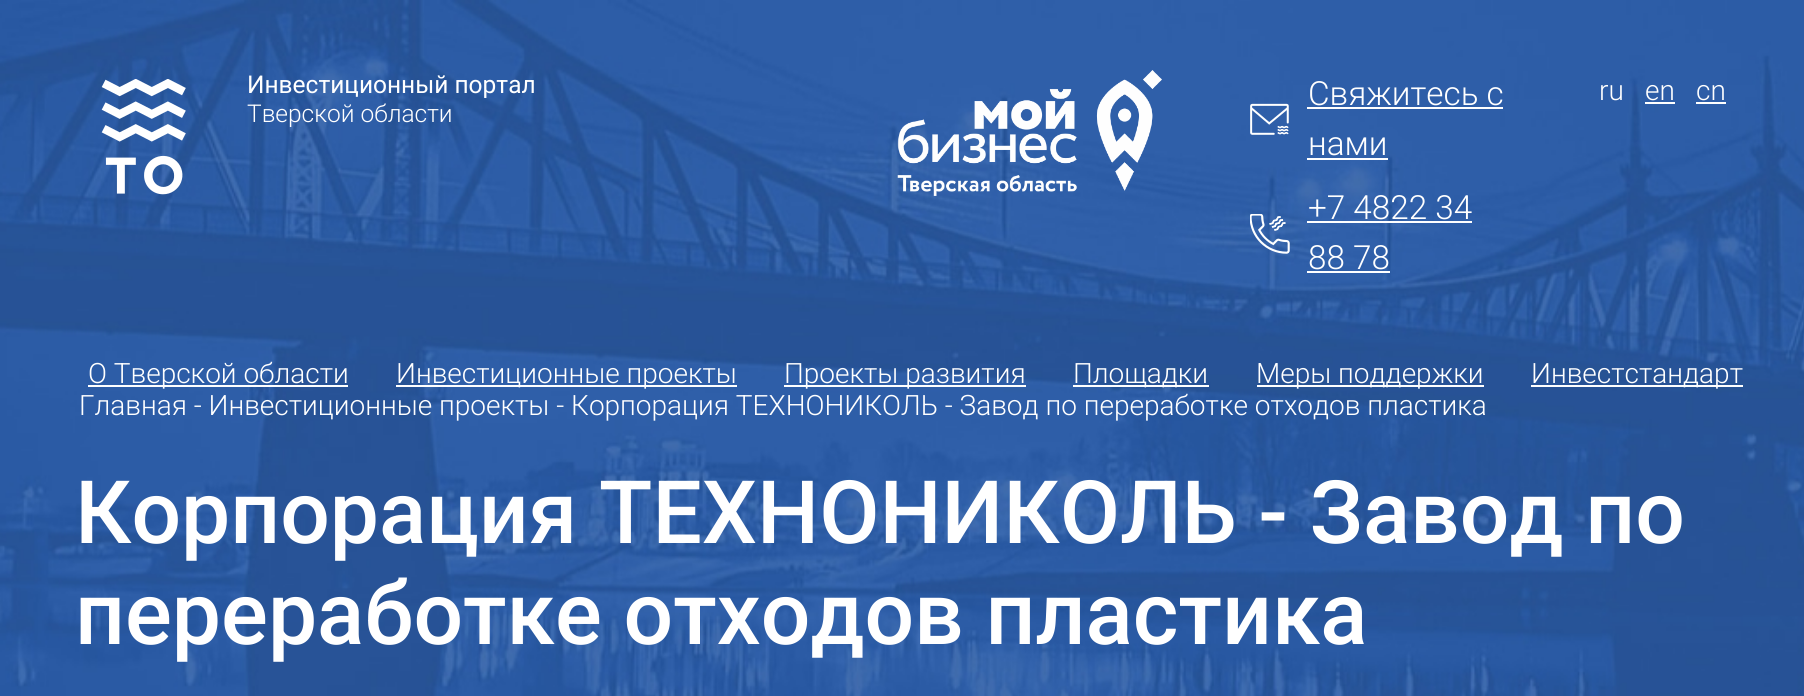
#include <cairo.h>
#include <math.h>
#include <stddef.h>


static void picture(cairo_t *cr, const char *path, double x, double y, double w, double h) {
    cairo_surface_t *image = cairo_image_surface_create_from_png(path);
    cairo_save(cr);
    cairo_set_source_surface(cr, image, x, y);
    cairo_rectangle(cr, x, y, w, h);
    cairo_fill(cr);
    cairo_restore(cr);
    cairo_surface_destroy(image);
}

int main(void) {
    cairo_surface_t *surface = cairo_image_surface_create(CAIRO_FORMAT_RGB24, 1804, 696);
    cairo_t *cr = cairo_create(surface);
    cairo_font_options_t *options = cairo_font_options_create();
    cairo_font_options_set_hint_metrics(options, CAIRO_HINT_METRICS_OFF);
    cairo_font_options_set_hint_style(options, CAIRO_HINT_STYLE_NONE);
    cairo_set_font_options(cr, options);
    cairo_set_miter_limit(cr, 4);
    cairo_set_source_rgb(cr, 1, 1, 1);
    cairo_paint(cr);
    picture(cr, "img1.png", 0, 0, 1804, 696);
    picture(cr, "img2.png", 101, 79, 85, 116);
    cairo_select_font_face(cr, "Roboto", CAIRO_FONT_SLANT_NORMAL, CAIRO_FONT_WEIGHT_NORMAL);
    cairo_set_font_size(cr, 24.5);
    cairo_set_source_rgb(cr, 1, 1, 1);
    cairo_move_to(cr, 247, 93);
    cairo_show_text(cr, "Инвестиционный портал");
    cairo_select_font_face(cr, "Roboto Light", CAIRO_FONT_SLANT_NORMAL, CAIRO_FONT_WEIGHT_NORMAL);
    cairo_move_to(cr, 247, 122);
    cairo_show_text(cr, "Тверской области");
    picture(cr, "img3.png", 897, 70, 265, 126);
    cairo_set_font_size(cr, 33.25);
    cairo_move_to(cr, 1308, 105);
    cairo_show_text(cr, "Свяжитесь с");
    cairo_rectangle(cr, 1307, 107, 196, 2);
    cairo_fill(cr);
    picture(cr, "img4.png", 1250, 103, 39, 32);
    cairo_move_to(cr, 1308, 155);
    cairo_show_text(cr, "нами");
    cairo_rectangle(cr, 1307, 158, 81, 2);
    cairo_fill(cr);
    cairo_move_to(cr, 1308, 219);
    cairo_show_text(cr, "+7 4822 34");
    cairo_rectangle(cr, 1307, 221, 165, 2);
    cairo_fill(cr);
    picture(cr, "img5.png", 1250, 214, 40, 40);
    cairo_move_to(cr, 1308, 269);
    cairo_show_text(cr, "88 78");
    cairo_rectangle(cr, 1307, 271, 83, 2);
    cairo_fill(cr);
    cairo_set_font_size(cr, 28);
    cairo_move_to(cr, 1599, 100);
    cairo_show_text(cr, "ru");
    cairo_move_to(cr, 1645, 100);
    cairo_show_text(cr, "en");
    cairo_rectangle(cr, 1645, 102, 30, 2);
    cairo_fill(cr);
    cairo_move_to(cr, 1696, 100);
    cairo_show_text(cr, "cn");
    cairo_rectangle(cr, 1696, 102, 30, 2);
    cairo_fill(cr);
    cairo_rectangle(cr, 88, 385, 260, 2);
    cairo_fill(cr);
    cairo_move_to(cr, 88, 383);
    cairo_show_text(cr, "О Тверской области");
    cairo_rectangle(cr, 396, 385, 341, 2);
    cairo_fill(cr);
    cairo_move_to(cr, 396, 383);
    cairo_show_text(cr, "Инвестиционные проекты");
    cairo_rectangle(cr, 784, 385, 242, 2);
    cairo_fill(cr);
    cairo_move_to(cr, 784, 383);
    cairo_show_text(cr, "Проекты развития");
    cairo_rectangle(cr, 1073, 385, 136, 2);
    cairo_fill(cr);
    cairo_move_to(cr, 1073, 383);
    cairo_show_text(cr, "Площадки");
    cairo_rectangle(cr, 1257, 385, 227, 2);
    cairo_fill(cr);
    cairo_move_to(cr, 1256, 383);
    cairo_show_text(cr, "Меры поддержки");
    cairo_rectangle(cr, 1531, 385, 212, 2);
    cairo_fill(cr);
    cairo_move_to(cr, 1531, 383);
    cairo_show_text(cr, "Инвестстандарт");
    cairo_move_to(cr, 79, 415);
    cairo_show_text(cr, "Главная - Инвестиционные проекты - Корпорация ТЕХНОНИКОЛЬ - Завод по переработке отходов пластика");
    cairo_select_font_face(cr, "Roboto Medium", CAIRO_FONT_SLANT_NORMAL, CAIRO_FONT_WEIGHT_NORMAL);
    cairo_set_font_size(cr, 87.5);
    cairo_move_to(cr, 75, 543);
    cairo_show_text(cr, "Корпорация ТЕХНОНИКОЛЬ - Завод по");
    cairo_move_to(cr, 75, 644);
    cairo_show_text(cr, "переработке отходов пластика");
    cairo_surface_write_to_png(surface, "page.png");
    cairo_font_options_destroy(options);
    cairo_destroy(cr);
    cairo_surface_destroy(surface);
    return 0;
}
